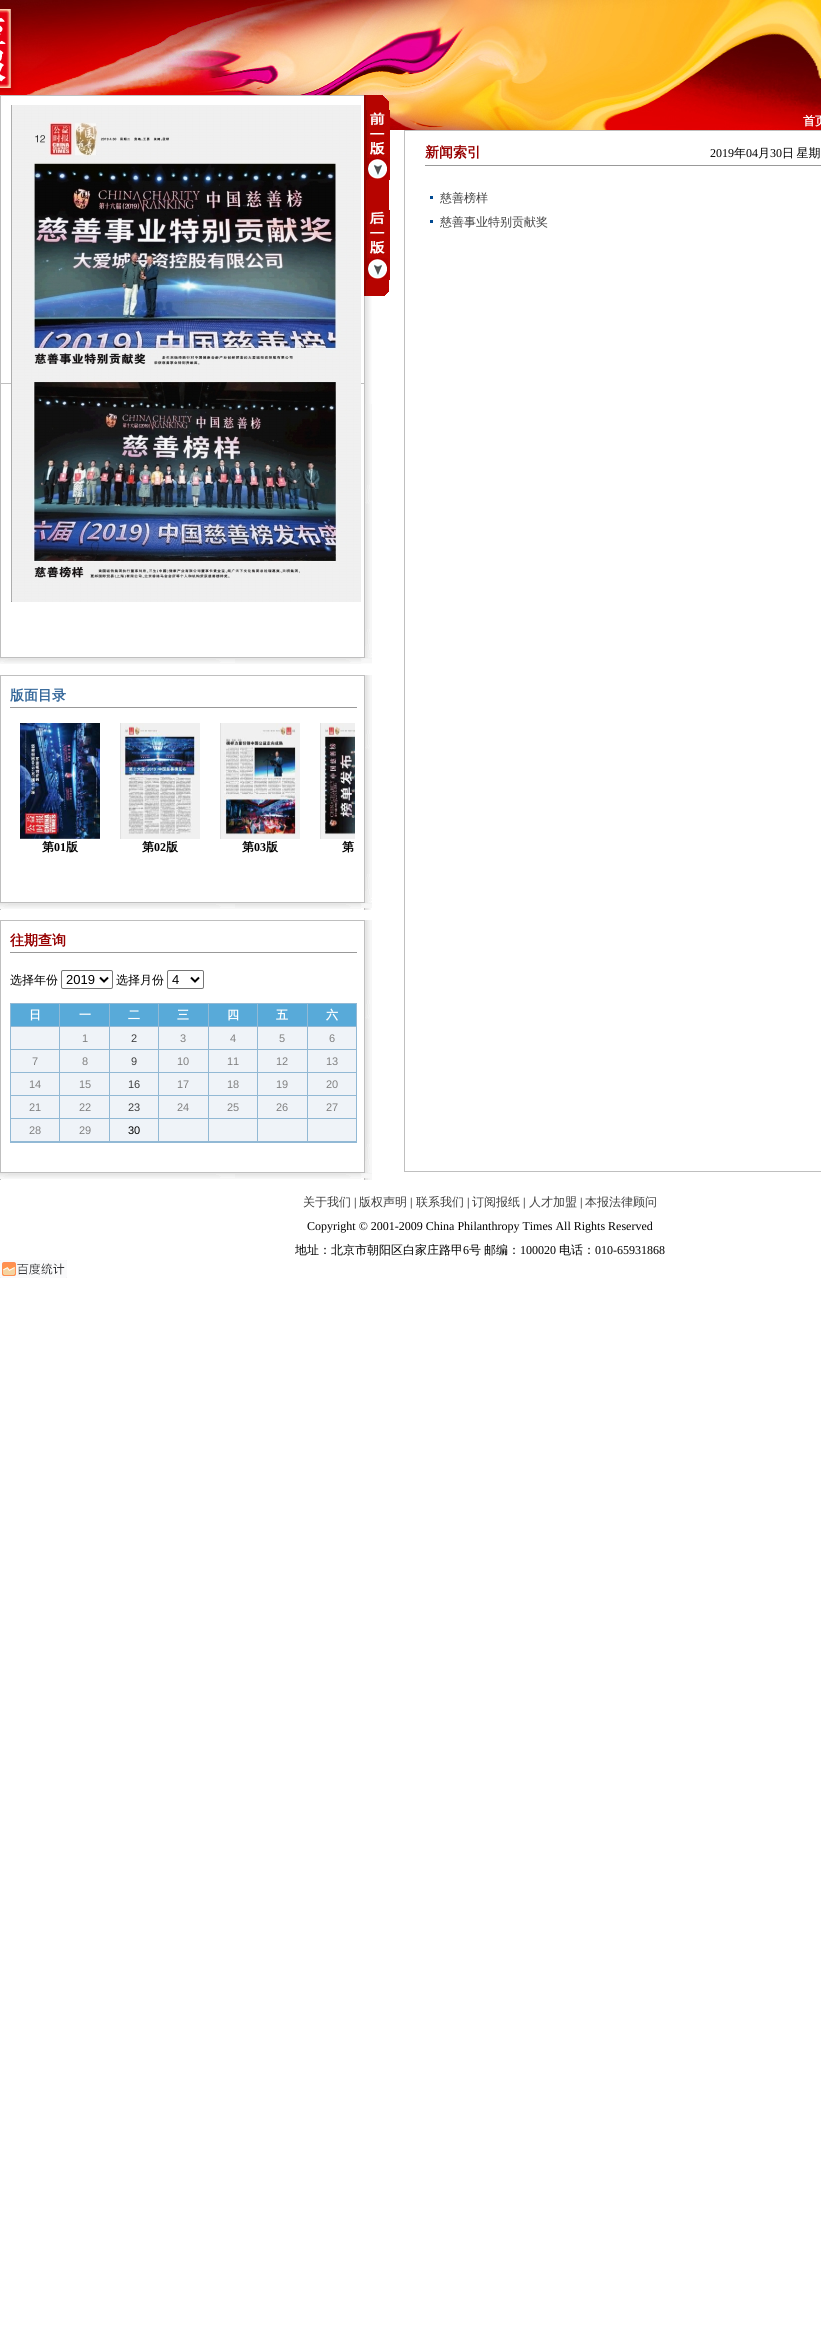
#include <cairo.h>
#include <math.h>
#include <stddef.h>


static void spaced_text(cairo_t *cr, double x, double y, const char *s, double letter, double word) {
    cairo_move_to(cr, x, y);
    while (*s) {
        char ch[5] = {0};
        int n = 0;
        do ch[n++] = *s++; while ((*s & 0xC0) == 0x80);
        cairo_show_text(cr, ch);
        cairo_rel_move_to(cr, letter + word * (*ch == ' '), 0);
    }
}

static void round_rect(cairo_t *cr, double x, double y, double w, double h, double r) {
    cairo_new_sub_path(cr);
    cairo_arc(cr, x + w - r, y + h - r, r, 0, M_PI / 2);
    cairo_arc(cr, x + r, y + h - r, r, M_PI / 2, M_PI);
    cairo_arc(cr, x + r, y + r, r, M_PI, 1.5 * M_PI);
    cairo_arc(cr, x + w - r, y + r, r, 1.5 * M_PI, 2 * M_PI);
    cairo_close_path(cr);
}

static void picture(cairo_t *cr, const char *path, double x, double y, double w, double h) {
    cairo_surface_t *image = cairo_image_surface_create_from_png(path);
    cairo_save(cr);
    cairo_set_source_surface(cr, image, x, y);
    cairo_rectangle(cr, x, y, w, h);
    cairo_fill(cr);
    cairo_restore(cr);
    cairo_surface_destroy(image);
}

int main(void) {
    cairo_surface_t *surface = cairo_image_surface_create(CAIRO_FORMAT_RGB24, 821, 2340);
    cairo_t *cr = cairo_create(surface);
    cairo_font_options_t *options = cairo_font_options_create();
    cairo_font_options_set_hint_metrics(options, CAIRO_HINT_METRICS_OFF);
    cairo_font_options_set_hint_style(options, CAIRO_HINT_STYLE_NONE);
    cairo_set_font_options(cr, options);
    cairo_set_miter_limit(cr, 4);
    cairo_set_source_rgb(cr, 1, 1, 1);
    cairo_paint(cr);
    picture(cr, "img1.png", 0, 0, 821, 130);
    cairo_select_font_face(cr, "WenQuanYi Zen Hei", CAIRO_FONT_SLANT_NORMAL, CAIRO_FONT_WEIGHT_BOLD);
    cairo_set_font_size(cr, 12);
    cairo_set_source_rgb(cr, 1, 1, 1);
    cairo_move_to(cr, 803, 125);
    cairo_show_text(cr, "首页");
    cairo_rectangle(cr, 404.5, 130.5, 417, 1041);
    cairo_set_source_rgb(cr, 0.749, 0.749, 0.749);
    cairo_set_line_width(cr, 1);
    cairo_stroke(cr);
    cairo_set_source_rgb(cr, 0.6, 0.6, 0.6);
    cairo_rectangle(cr, 425, 165, 396, 1);
    cairo_fill(cr);
    cairo_set_font_size(cr, 14);
    cairo_set_source_rgb(cr, 0.588, 0, 0);
    cairo_move_to(cr, 425, 157);
    cairo_show_text(cr, "新闻索引");
    cairo_select_font_face(cr, "Liberation Serif", CAIRO_FONT_SLANT_NORMAL, CAIRO_FONT_WEIGHT_NORMAL);
    cairo_set_font_size(cr, 12);
    cairo_set_source_rgb(cr, 0, 0, 0);
    cairo_move_to(cr, 710, 157);
    cairo_show_text(cr, "2019");
    cairo_select_font_face(cr, "WenQuanYi Zen Hei Medium", CAIRO_FONT_SLANT_NORMAL, CAIRO_FONT_WEIGHT_NORMAL);
    cairo_move_to(cr, 734, 157);
    cairo_show_text(cr, "年");
    cairo_select_font_face(cr, "Liberation Serif", CAIRO_FONT_SLANT_NORMAL, CAIRO_FONT_WEIGHT_NORMAL);
    cairo_move_to(cr, 746, 157);
    cairo_show_text(cr, "04");
    cairo_select_font_face(cr, "WenQuanYi Zen Hei Medium", CAIRO_FONT_SLANT_NORMAL, CAIRO_FONT_WEIGHT_NORMAL);
    cairo_move_to(cr, 758, 157);
    cairo_show_text(cr, "月");
    cairo_select_font_face(cr, "Liberation Serif", CAIRO_FONT_SLANT_NORMAL, CAIRO_FONT_WEIGHT_NORMAL);
    cairo_move_to(cr, 770, 157);
    cairo_show_text(cr, "30");
    cairo_select_font_face(cr, "WenQuanYi Zen Hei Medium", CAIRO_FONT_SLANT_NORMAL, CAIRO_FONT_WEIGHT_NORMAL);
    spaced_text(cr, 782, 157, "日 星期", 0, -1);
    cairo_set_source_rgb(cr, 0.004, 0.286, 0.569);
    cairo_rectangle(cr, 430, 196, 3, 3);
    cairo_fill(cr);
    cairo_set_source_rgb(cr, 0.243, 0.243, 0.243);
    cairo_move_to(cr, 440, 202);
    cairo_show_text(cr, "慈善榜样");
    cairo_set_source_rgb(cr, 0.004, 0.286, 0.569);
    cairo_rectangle(cr, 430, 220, 3, 3);
    cairo_fill(cr);
    cairo_set_source_rgb(cr, 0.243, 0.243, 0.243);
    cairo_move_to(cr, 440, 226);
    cairo_show_text(cr, "慈善事业特别贡献奖");
    picture(cr, "img2.png", 0, 95, 372, 569);
    picture(cr, "img3.png", 1, 383, 371, 281);
    picture(cr, "img4.png", 11, 105, 350, 497);
    picture(cr, "img5.png", 364, 95, 25, 201);
    picture(cr, "img6.png", 366, 110, 24, 70);
    picture(cr, "img7.png", 365, 210, 25, 70);
    picture(cr, "img8.png", 0, 675, 371, 235);
    picture(cr, "img9.png", 0, 675, 372, 234);
    cairo_set_source_rgb(cr, 0.6, 0.6, 0.6);
    cairo_rectangle(cr, 10, 707, 347, 1);
    cairo_fill(cr);
    cairo_select_font_face(cr, "WenQuanYi Zen Hei", CAIRO_FONT_SLANT_NORMAL, CAIRO_FONT_WEIGHT_BOLD);
    cairo_set_font_size(cr, 14);
    cairo_set_source_rgb(cr, 0.2, 0.4, 0.6);
    cairo_move_to(cr, 10, 700);
    cairo_show_text(cr, "版面目录");
    picture(cr, "img10.png", 20, 723, 80, 116);
    cairo_set_font_size(cr, 12);
    cairo_set_source_rgb(cr, 0, 0, 0);
    cairo_move_to(cr, 42, 851);
    cairo_show_text(cr, "第");
    cairo_select_font_face(cr, "Liberation Serif", CAIRO_FONT_SLANT_NORMAL, CAIRO_FONT_WEIGHT_BOLD);
    cairo_move_to(cr, 54, 851);
    cairo_show_text(cr, "01");
    cairo_select_font_face(cr, "WenQuanYi Zen Hei", CAIRO_FONT_SLANT_NORMAL, CAIRO_FONT_WEIGHT_BOLD);
    cairo_move_to(cr, 66, 851);
    cairo_show_text(cr, "版");
    picture(cr, "img11.png", 120, 723, 80, 116);
    cairo_move_to(cr, 142, 851);
    cairo_show_text(cr, "第");
    cairo_select_font_face(cr, "Liberation Serif", CAIRO_FONT_SLANT_NORMAL, CAIRO_FONT_WEIGHT_BOLD);
    cairo_move_to(cr, 154, 851);
    cairo_show_text(cr, "02");
    cairo_select_font_face(cr, "WenQuanYi Zen Hei", CAIRO_FONT_SLANT_NORMAL, CAIRO_FONT_WEIGHT_BOLD);
    cairo_move_to(cr, 166, 851);
    cairo_show_text(cr, "版");
    picture(cr, "img12.png", 220, 723, 80, 116);
    cairo_move_to(cr, 242, 851);
    cairo_show_text(cr, "第");
    cairo_select_font_face(cr, "Liberation Serif", CAIRO_FONT_SLANT_NORMAL, CAIRO_FONT_WEIGHT_BOLD);
    cairo_move_to(cr, 254, 851);
    cairo_show_text(cr, "03");
    cairo_select_font_face(cr, "WenQuanYi Zen Hei", CAIRO_FONT_SLANT_NORMAL, CAIRO_FONT_WEIGHT_BOLD);
    cairo_move_to(cr, 266, 851);
    cairo_show_text(cr, "版");
    picture(cr, "img13.png", 320, 723, 35, 116);
    cairo_move_to(cr, 342, 851);
    cairo_show_text(cr, "第");
    picture(cr, "img14.png", 0, 920, 372, 260);
    picture(cr, "img15.png", 0, 920, 372, 259);
    cairo_set_source_rgb(cr, 0.6, 0.6, 0.6);
    cairo_rectangle(cr, 10, 952, 347, 1);
    cairo_fill(cr);
    cairo_set_font_size(cr, 14);
    cairo_set_source_rgb(cr, 0.588, 0, 0);
    cairo_move_to(cr, 10, 945);
    cairo_show_text(cr, "往期查询");
    cairo_select_font_face(cr, "WenQuanYi Zen Hei Medium", CAIRO_FONT_SLANT_NORMAL, CAIRO_FONT_WEIGHT_NORMAL);
    cairo_set_font_size(cr, 12);
    cairo_set_source_rgb(cr, 0, 0, 0);
    cairo_move_to(cr, 10, 984);
    cairo_show_text(cr, "选择年份");
    round_rect(cr, 61.5, 970.5, 51, 18, 1.5);
    cairo_set_source_rgb(cr, 0.463, 0.463, 0.463);
    cairo_stroke(cr);
    cairo_new_path(cr);
    cairo_move_to(cr, 100, 977.5);
    cairo_line_to(cr, 104, 981.5);
    cairo_line_to(cr, 108, 977.5);
    cairo_set_source_rgb(cr, 0, 0, 0);
    cairo_set_line_width(cr, 2);
    cairo_stroke(cr);
    cairo_select_font_face(cr, "Liberation Sans", CAIRO_FONT_SLANT_NORMAL, CAIRO_FONT_WEIGHT_NORMAL);
    cairo_set_font_size(cr, 13);
    cairo_move_to(cr, 66, 984);
    cairo_show_text(cr, "2019");
    cairo_select_font_face(cr, "WenQuanYi Zen Hei Medium", CAIRO_FONT_SLANT_NORMAL, CAIRO_FONT_WEIGHT_NORMAL);
    cairo_set_font_size(cr, 12);
    cairo_move_to(cr, 116, 984);
    cairo_show_text(cr, "选择月份");
    round_rect(cr, 167.5, 970.5, 36, 18, 1.5);
    cairo_set_source_rgb(cr, 0.463, 0.463, 0.463);
    cairo_set_line_width(cr, 1);
    cairo_stroke(cr);
    cairo_new_path(cr);
    cairo_move_to(cr, 191, 977.5);
    cairo_line_to(cr, 195, 981.5);
    cairo_line_to(cr, 199, 977.5);
    cairo_set_source_rgb(cr, 0, 0, 0);
    cairo_set_line_width(cr, 2);
    cairo_stroke(cr);
    cairo_select_font_face(cr, "Liberation Sans", CAIRO_FONT_SLANT_NORMAL, CAIRO_FONT_WEIGHT_NORMAL);
    cairo_set_font_size(cr, 13);
    cairo_move_to(cr, 172, 984);
    cairo_show_text(cr, "4");
    cairo_set_source_rgb(cr, 0.345, 0.667, 0.851);
    cairo_rectangle(cr, 11, 1004, 345, 22);
    cairo_fill(cr);
    cairo_set_source_rgb(cr, 0.573, 0.725, 0.835);
    cairo_rectangle(cr, 307, 1003, 50, 1);
    cairo_fill(cr);
    cairo_rectangle(cr, 307, 1026, 50, 1);
    cairo_fill(cr);
    cairo_rectangle(cr, 307, 1049, 50, 1);
    cairo_fill(cr);
    cairo_rectangle(cr, 307, 1072, 50, 1);
    cairo_fill(cr);
    cairo_rectangle(cr, 307, 1095, 50, 1);
    cairo_fill(cr);
    cairo_rectangle(cr, 307, 1118, 50, 1);
    cairo_fill(cr);
    cairo_rectangle(cr, 307, 1141, 50, 2);
    cairo_fill(cr);
    cairo_rectangle(cr, 257, 1141, 51, 2);
    cairo_fill(cr);
    cairo_rectangle(cr, 307, 1118, 1, 24);
    cairo_fill(cr);
    cairo_rectangle(cr, 257, 1118, 51, 1);
    cairo_fill(cr);
    cairo_rectangle(cr, 307, 1095, 1, 24);
    cairo_fill(cr);
    cairo_rectangle(cr, 257, 1095, 51, 1);
    cairo_fill(cr);
    cairo_rectangle(cr, 307, 1072, 1, 24);
    cairo_fill(cr);
    cairo_rectangle(cr, 257, 1072, 51, 1);
    cairo_fill(cr);
    cairo_rectangle(cr, 307, 1049, 1, 24);
    cairo_fill(cr);
    cairo_rectangle(cr, 257, 1049, 51, 1);
    cairo_fill(cr);
    cairo_rectangle(cr, 307, 1026, 1, 24);
    cairo_fill(cr);
    cairo_rectangle(cr, 257, 1026, 51, 1);
    cairo_fill(cr);
    cairo_rectangle(cr, 307, 1003, 1, 24);
    cairo_fill(cr);
    cairo_rectangle(cr, 257, 1003, 51, 1);
    cairo_fill(cr);
    cairo_rectangle(cr, 208, 1141, 50, 2);
    cairo_fill(cr);
    cairo_rectangle(cr, 257, 1118, 1, 24);
    cairo_fill(cr);
    cairo_rectangle(cr, 208, 1118, 50, 1);
    cairo_fill(cr);
    cairo_rectangle(cr, 257, 1095, 1, 24);
    cairo_fill(cr);
    cairo_rectangle(cr, 208, 1095, 50, 1);
    cairo_fill(cr);
    cairo_rectangle(cr, 257, 1072, 1, 24);
    cairo_fill(cr);
    cairo_rectangle(cr, 208, 1072, 50, 1);
    cairo_fill(cr);
    cairo_rectangle(cr, 257, 1049, 1, 24);
    cairo_fill(cr);
    cairo_rectangle(cr, 208, 1049, 50, 1);
    cairo_fill(cr);
    cairo_rectangle(cr, 257, 1026, 1, 24);
    cairo_fill(cr);
    cairo_rectangle(cr, 208, 1026, 50, 1);
    cairo_fill(cr);
    cairo_rectangle(cr, 257, 1003, 1, 24);
    cairo_fill(cr);
    cairo_rectangle(cr, 208, 1003, 50, 1);
    cairo_fill(cr);
    cairo_rectangle(cr, 158, 1141, 51, 2);
    cairo_fill(cr);
    cairo_rectangle(cr, 208, 1118, 1, 24);
    cairo_fill(cr);
    cairo_rectangle(cr, 158, 1118, 51, 1);
    cairo_fill(cr);
    cairo_rectangle(cr, 208, 1095, 1, 24);
    cairo_fill(cr);
    cairo_rectangle(cr, 158, 1095, 51, 1);
    cairo_fill(cr);
    cairo_rectangle(cr, 208, 1072, 1, 24);
    cairo_fill(cr);
    cairo_rectangle(cr, 158, 1072, 51, 1);
    cairo_fill(cr);
    cairo_rectangle(cr, 208, 1049, 1, 24);
    cairo_fill(cr);
    cairo_rectangle(cr, 158, 1049, 51, 1);
    cairo_fill(cr);
    cairo_rectangle(cr, 208, 1026, 1, 24);
    cairo_fill(cr);
    cairo_rectangle(cr, 158, 1026, 51, 1);
    cairo_fill(cr);
    cairo_rectangle(cr, 208, 1003, 1, 24);
    cairo_fill(cr);
    cairo_rectangle(cr, 158, 1003, 51, 1);
    cairo_fill(cr);
    cairo_rectangle(cr, 109, 1141, 50, 2);
    cairo_fill(cr);
    cairo_rectangle(cr, 158, 1118, 1, 24);
    cairo_fill(cr);
    cairo_rectangle(cr, 109, 1118, 50, 1);
    cairo_fill(cr);
    cairo_rectangle(cr, 158, 1095, 1, 24);
    cairo_fill(cr);
    cairo_rectangle(cr, 109, 1095, 50, 1);
    cairo_fill(cr);
    cairo_rectangle(cr, 158, 1072, 1, 24);
    cairo_fill(cr);
    cairo_rectangle(cr, 109, 1072, 50, 1);
    cairo_fill(cr);
    cairo_rectangle(cr, 158, 1049, 1, 24);
    cairo_fill(cr);
    cairo_rectangle(cr, 109, 1049, 50, 1);
    cairo_fill(cr);
    cairo_rectangle(cr, 158, 1026, 1, 24);
    cairo_fill(cr);
    cairo_rectangle(cr, 109, 1026, 50, 1);
    cairo_fill(cr);
    cairo_rectangle(cr, 158, 1003, 1, 24);
    cairo_fill(cr);
    cairo_rectangle(cr, 109, 1003, 50, 1);
    cairo_fill(cr);
    cairo_rectangle(cr, 59, 1141, 51, 2);
    cairo_fill(cr);
    cairo_rectangle(cr, 109, 1118, 1, 24);
    cairo_fill(cr);
    cairo_rectangle(cr, 59, 1118, 51, 1);
    cairo_fill(cr);
    cairo_rectangle(cr, 109, 1095, 1, 24);
    cairo_fill(cr);
    cairo_rectangle(cr, 59, 1095, 51, 1);
    cairo_fill(cr);
    cairo_rectangle(cr, 109, 1072, 1, 24);
    cairo_fill(cr);
    cairo_rectangle(cr, 59, 1072, 51, 1);
    cairo_fill(cr);
    cairo_rectangle(cr, 109, 1049, 1, 24);
    cairo_fill(cr);
    cairo_rectangle(cr, 59, 1049, 51, 1);
    cairo_fill(cr);
    cairo_rectangle(cr, 109, 1026, 1, 24);
    cairo_fill(cr);
    cairo_rectangle(cr, 59, 1026, 51, 1);
    cairo_fill(cr);
    cairo_rectangle(cr, 109, 1003, 1, 24);
    cairo_fill(cr);
    cairo_rectangle(cr, 59, 1003, 51, 1);
    cairo_fill(cr);
    cairo_rectangle(cr, 10, 1141, 50, 2);
    cairo_fill(cr);
    cairo_rectangle(cr, 59, 1118, 1, 24);
    cairo_fill(cr);
    cairo_rectangle(cr, 10, 1118, 50, 1);
    cairo_fill(cr);
    cairo_rectangle(cr, 59, 1095, 1, 24);
    cairo_fill(cr);
    cairo_rectangle(cr, 10, 1095, 50, 1);
    cairo_fill(cr);
    cairo_rectangle(cr, 59, 1072, 1, 24);
    cairo_fill(cr);
    cairo_rectangle(cr, 10, 1072, 50, 1);
    cairo_fill(cr);
    cairo_rectangle(cr, 59, 1049, 1, 24);
    cairo_fill(cr);
    cairo_rectangle(cr, 10, 1049, 50, 1);
    cairo_fill(cr);
    cairo_rectangle(cr, 59, 1026, 1, 24);
    cairo_fill(cr);
    cairo_rectangle(cr, 10, 1026, 50, 1);
    cairo_fill(cr);
    cairo_rectangle(cr, 59, 1003, 1, 24);
    cairo_fill(cr);
    cairo_rectangle(cr, 10, 1003, 50, 1);
    cairo_fill(cr);
    cairo_rectangle(cr, 10, 1118, 1, 24);
    cairo_fill(cr);
    cairo_rectangle(cr, 10, 1095, 1, 24);
    cairo_fill(cr);
    cairo_rectangle(cr, 10, 1072, 1, 24);
    cairo_fill(cr);
    cairo_rectangle(cr, 10, 1049, 1, 24);
    cairo_fill(cr);
    cairo_rectangle(cr, 10, 1026, 1, 24);
    cairo_fill(cr);
    cairo_rectangle(cr, 10, 1003, 1, 24);
    cairo_fill(cr);
    cairo_select_font_face(cr, "WenQuanYi Zen Hei", CAIRO_FONT_SLANT_NORMAL, CAIRO_FONT_WEIGHT_BOLD);
    cairo_set_font_size(cr, 12);
    cairo_set_source_rgb(cr, 1, 1, 1);
    cairo_move_to(cr, 29, 1019);
    cairo_show_text(cr, "日");
    cairo_move_to(cr, 79, 1019);
    cairo_show_text(cr, "一");
    cairo_move_to(cr, 128, 1019);
    cairo_show_text(cr, "二");
    cairo_move_to(cr, 177, 1019);
    cairo_show_text(cr, "三");
    cairo_move_to(cr, 227, 1019);
    cairo_show_text(cr, "四");
    cairo_move_to(cr, 276, 1019);
    cairo_show_text(cr, "五");
    cairo_set_source_rgb(cr, 0.573, 0.725, 0.835);
    cairo_rectangle(cr, 356, 1118, 1, 24);
    cairo_fill(cr);
    cairo_rectangle(cr, 356, 1095, 1, 24);
    cairo_fill(cr);
    cairo_rectangle(cr, 356, 1072, 1, 24);
    cairo_fill(cr);
    cairo_rectangle(cr, 356, 1049, 1, 24);
    cairo_fill(cr);
    cairo_rectangle(cr, 356, 1026, 1, 24);
    cairo_fill(cr);
    cairo_rectangle(cr, 356, 1003, 1, 24);
    cairo_fill(cr);
    cairo_set_source_rgb(cr, 1, 1, 1);
    cairo_move_to(cr, 326, 1019);
    cairo_show_text(cr, "六");
    cairo_set_source_rgb(cr, 0.937, 0.953, 0.969);
    cairo_rectangle(cr, 11, 1027, 48, 22);
    cairo_fill(cr);
    cairo_rectangle(cr, 60, 1027, 49, 22);
    cairo_fill(cr);
    cairo_select_font_face(cr, "Liberation Sans", CAIRO_FONT_SLANT_NORMAL, CAIRO_FONT_WEIGHT_NORMAL);
    cairo_set_font_size(cr, 11);
    cairo_set_source_rgb(cr, 0.502, 0.502, 0.502);
    cairo_move_to(cr, 82, 1042);
    cairo_show_text(cr, "1");
    cairo_set_source_rgb(cr, 0.937, 0.953, 0.969);
    cairo_rectangle(cr, 110, 1027, 48, 22);
    cairo_fill(cr);
    cairo_set_source_rgb(cr, 0.243, 0.243, 0.243);
    cairo_move_to(cr, 131, 1042);
    cairo_show_text(cr, "2");
    cairo_set_source_rgb(cr, 0.937, 0.953, 0.969);
    cairo_rectangle(cr, 159, 1027, 49, 22);
    cairo_fill(cr);
    cairo_set_source_rgb(cr, 0.502, 0.502, 0.502);
    cairo_move_to(cr, 180, 1042);
    cairo_show_text(cr, "3");
    cairo_set_source_rgb(cr, 0.937, 0.953, 0.969);
    cairo_rectangle(cr, 209, 1027, 48, 22);
    cairo_fill(cr);
    cairo_set_source_rgb(cr, 0.502, 0.502, 0.502);
    cairo_move_to(cr, 230, 1042);
    cairo_show_text(cr, "4");
    cairo_set_source_rgb(cr, 0.937, 0.953, 0.969);
    cairo_rectangle(cr, 258, 1027, 49, 22);
    cairo_fill(cr);
    cairo_set_source_rgb(cr, 0.502, 0.502, 0.502);
    cairo_move_to(cr, 279, 1042);
    cairo_show_text(cr, "5");
    cairo_set_source_rgb(cr, 0.937, 0.953, 0.969);
    cairo_rectangle(cr, 308, 1027, 48, 22);
    cairo_fill(cr);
    cairo_set_source_rgb(cr, 0.502, 0.502, 0.502);
    cairo_move_to(cr, 329, 1042);
    cairo_show_text(cr, "6");
    cairo_set_source_rgb(cr, 0.937, 0.953, 0.969);
    cairo_rectangle(cr, 11, 1050, 48, 22);
    cairo_fill(cr);
    cairo_set_source_rgb(cr, 0.502, 0.502, 0.502);
    cairo_move_to(cr, 32, 1065);
    cairo_show_text(cr, "7");
    cairo_set_source_rgb(cr, 0.937, 0.953, 0.969);
    cairo_rectangle(cr, 60, 1050, 49, 22);
    cairo_fill(cr);
    cairo_set_source_rgb(cr, 0.502, 0.502, 0.502);
    cairo_move_to(cr, 82, 1065);
    cairo_show_text(cr, "8");
    cairo_set_source_rgb(cr, 0.937, 0.953, 0.969);
    cairo_rectangle(cr, 110, 1050, 48, 22);
    cairo_fill(cr);
    cairo_set_source_rgb(cr, 0.243, 0.243, 0.243);
    cairo_move_to(cr, 131, 1065);
    cairo_show_text(cr, "9");
    cairo_set_source_rgb(cr, 0.937, 0.953, 0.969);
    cairo_rectangle(cr, 159, 1050, 49, 22);
    cairo_fill(cr);
    cairo_set_source_rgb(cr, 0.502, 0.502, 0.502);
    cairo_move_to(cr, 177, 1065);
    cairo_show_text(cr, "10");
    cairo_set_source_rgb(cr, 0.937, 0.953, 0.969);
    cairo_rectangle(cr, 209, 1050, 48, 22);
    cairo_fill(cr);
    cairo_set_source_rgb(cr, 0.502, 0.502, 0.502);
    cairo_move_to(cr, 227, 1065);
    cairo_show_text(cr, "11");
    cairo_set_source_rgb(cr, 0.937, 0.953, 0.969);
    cairo_rectangle(cr, 258, 1050, 49, 22);
    cairo_fill(cr);
    cairo_set_source_rgb(cr, 0.502, 0.502, 0.502);
    cairo_move_to(cr, 276, 1065);
    cairo_show_text(cr, "12");
    cairo_set_source_rgb(cr, 0.937, 0.953, 0.969);
    cairo_rectangle(cr, 308, 1050, 48, 22);
    cairo_fill(cr);
    cairo_set_source_rgb(cr, 0.502, 0.502, 0.502);
    cairo_move_to(cr, 326, 1065);
    cairo_show_text(cr, "13");
    cairo_set_source_rgb(cr, 0.937, 0.953, 0.969);
    cairo_rectangle(cr, 11, 1073, 48, 22);
    cairo_fill(cr);
    cairo_set_source_rgb(cr, 0.502, 0.502, 0.502);
    cairo_move_to(cr, 29, 1088);
    cairo_show_text(cr, "14");
    cairo_set_source_rgb(cr, 0.937, 0.953, 0.969);
    cairo_rectangle(cr, 60, 1073, 49, 22);
    cairo_fill(cr);
    cairo_set_source_rgb(cr, 0.502, 0.502, 0.502);
    cairo_move_to(cr, 79, 1088);
    cairo_show_text(cr, "15");
    cairo_set_source_rgb(cr, 0.937, 0.953, 0.969);
    cairo_rectangle(cr, 110, 1073, 48, 22);
    cairo_fill(cr);
    cairo_set_source_rgb(cr, 0.243, 0.243, 0.243);
    cairo_move_to(cr, 128, 1088);
    cairo_show_text(cr, "16");
    cairo_set_source_rgb(cr, 0.937, 0.953, 0.969);
    cairo_rectangle(cr, 159, 1073, 49, 22);
    cairo_fill(cr);
    cairo_set_source_rgb(cr, 0.502, 0.502, 0.502);
    cairo_move_to(cr, 177, 1088);
    cairo_show_text(cr, "17");
    cairo_set_source_rgb(cr, 0.937, 0.953, 0.969);
    cairo_rectangle(cr, 209, 1073, 48, 22);
    cairo_fill(cr);
    cairo_set_source_rgb(cr, 0.502, 0.502, 0.502);
    cairo_move_to(cr, 227, 1088);
    cairo_show_text(cr, "18");
    cairo_set_source_rgb(cr, 0.937, 0.953, 0.969);
    cairo_rectangle(cr, 258, 1073, 49, 22);
    cairo_fill(cr);
    cairo_set_source_rgb(cr, 0.502, 0.502, 0.502);
    cairo_move_to(cr, 276, 1088);
    cairo_show_text(cr, "19");
    cairo_set_source_rgb(cr, 0.937, 0.953, 0.969);
    cairo_rectangle(cr, 308, 1073, 48, 22);
    cairo_fill(cr);
    cairo_set_source_rgb(cr, 0.502, 0.502, 0.502);
    cairo_move_to(cr, 326, 1088);
    cairo_show_text(cr, "20");
    cairo_set_source_rgb(cr, 0.937, 0.953, 0.969);
    cairo_rectangle(cr, 11, 1096, 48, 22);
    cairo_fill(cr);
    cairo_set_source_rgb(cr, 0.502, 0.502, 0.502);
    cairo_move_to(cr, 29, 1111);
    cairo_show_text(cr, "21");
    cairo_set_source_rgb(cr, 0.937, 0.953, 0.969);
    cairo_rectangle(cr, 60, 1096, 49, 22);
    cairo_fill(cr);
    cairo_set_source_rgb(cr, 0.502, 0.502, 0.502);
    cairo_move_to(cr, 79, 1111);
    cairo_show_text(cr, "22");
    cairo_set_source_rgb(cr, 0.937, 0.953, 0.969);
    cairo_rectangle(cr, 110, 1096, 48, 22);
    cairo_fill(cr);
    cairo_set_source_rgb(cr, 0.243, 0.243, 0.243);
    cairo_move_to(cr, 128, 1111);
    cairo_show_text(cr, "23");
    cairo_set_source_rgb(cr, 0.937, 0.953, 0.969);
    cairo_rectangle(cr, 159, 1096, 49, 22);
    cairo_fill(cr);
    cairo_set_source_rgb(cr, 0.502, 0.502, 0.502);
    cairo_move_to(cr, 177, 1111);
    cairo_show_text(cr, "24");
    cairo_set_source_rgb(cr, 0.937, 0.953, 0.969);
    cairo_rectangle(cr, 209, 1096, 48, 22);
    cairo_fill(cr);
    cairo_set_source_rgb(cr, 0.502, 0.502, 0.502);
    cairo_move_to(cr, 227, 1111);
    cairo_show_text(cr, "25");
    cairo_set_source_rgb(cr, 0.937, 0.953, 0.969);
    cairo_rectangle(cr, 258, 1096, 49, 22);
    cairo_fill(cr);
    cairo_set_source_rgb(cr, 0.502, 0.502, 0.502);
    cairo_move_to(cr, 276, 1111);
    cairo_show_text(cr, "26");
    cairo_set_source_rgb(cr, 0.937, 0.953, 0.969);
    cairo_rectangle(cr, 308, 1096, 48, 22);
    cairo_fill(cr);
    cairo_set_source_rgb(cr, 0.502, 0.502, 0.502);
    cairo_move_to(cr, 326, 1111);
    cairo_show_text(cr, "27");
    cairo_set_source_rgb(cr, 0.937, 0.953, 0.969);
    cairo_rectangle(cr, 11, 1119, 48, 22);
    cairo_fill(cr);
    cairo_set_source_rgb(cr, 0.502, 0.502, 0.502);
    cairo_move_to(cr, 29, 1134);
    cairo_show_text(cr, "28");
    cairo_set_source_rgb(cr, 0.937, 0.953, 0.969);
    cairo_rectangle(cr, 60, 1119, 49, 22);
    cairo_fill(cr);
    cairo_set_source_rgb(cr, 0.502, 0.502, 0.502);
    cairo_move_to(cr, 79, 1134);
    cairo_show_text(cr, "29");
    cairo_set_source_rgb(cr, 0.937, 0.953, 0.969);
    cairo_rectangle(cr, 110, 1119, 48, 22);
    cairo_fill(cr);
    cairo_set_source_rgb(cr, 0, 0, 0);
    cairo_move_to(cr, 128, 1134);
    cairo_show_text(cr, "30");
    cairo_set_source_rgb(cr, 0.937, 0.953, 0.969);
    cairo_rectangle(cr, 159, 1119, 49, 22);
    cairo_fill(cr);
    cairo_rectangle(cr, 209, 1119, 48, 22);
    cairo_fill(cr);
    cairo_rectangle(cr, 258, 1119, 49, 22);
    cairo_fill(cr);
    cairo_rectangle(cr, 308, 1119, 48, 22);
    cairo_fill(cr);
    cairo_select_font_face(cr, "WenQuanYi Zen Hei Medium", CAIRO_FONT_SLANT_NORMAL, CAIRO_FONT_WEIGHT_NORMAL);
    cairo_set_font_size(cr, 12);
    cairo_set_source_rgb(cr, 0.243, 0.243, 0.243);
    cairo_move_to(cr, 303, 1206);
    cairo_show_text(cr, "关于我们");
    cairo_select_font_face(cr, "Liberation Serif", CAIRO_FONT_SLANT_NORMAL, CAIRO_FONT_WEIGHT_NORMAL);
    cairo_set_source_rgb(cr, 0, 0, 0);
    cairo_move_to(cr, 354, 1206);
    cairo_show_text(cr, "|");
    cairo_select_font_face(cr, "WenQuanYi Zen Hei Medium", CAIRO_FONT_SLANT_NORMAL, CAIRO_FONT_WEIGHT_NORMAL);
    cairo_set_source_rgb(cr, 0.243, 0.243, 0.243);
    cairo_move_to(cr, 359, 1206);
    cairo_show_text(cr, "版权声明");
    cairo_select_font_face(cr, "Liberation Serif", CAIRO_FONT_SLANT_NORMAL, CAIRO_FONT_WEIGHT_NORMAL);
    cairo_set_source_rgb(cr, 0, 0, 0);
    cairo_move_to(cr, 410, 1206);
    cairo_show_text(cr, "|");
    cairo_select_font_face(cr, "WenQuanYi Zen Hei Medium", CAIRO_FONT_SLANT_NORMAL, CAIRO_FONT_WEIGHT_NORMAL);
    cairo_set_source_rgb(cr, 0.243, 0.243, 0.243);
    cairo_move_to(cr, 416, 1206);
    cairo_show_text(cr, "联系我们");
    cairo_select_font_face(cr, "Liberation Serif", CAIRO_FONT_SLANT_NORMAL, CAIRO_FONT_WEIGHT_NORMAL);
    cairo_set_source_rgb(cr, 0, 0, 0);
    cairo_move_to(cr, 467, 1206);
    cairo_show_text(cr, "|");
    cairo_select_font_face(cr, "WenQuanYi Zen Hei Medium", CAIRO_FONT_SLANT_NORMAL, CAIRO_FONT_WEIGHT_NORMAL);
    cairo_set_source_rgb(cr, 0.243, 0.243, 0.243);
    cairo_move_to(cr, 472, 1206);
    cairo_show_text(cr, "订阅报纸");
    cairo_select_font_face(cr, "Liberation Serif", CAIRO_FONT_SLANT_NORMAL, CAIRO_FONT_WEIGHT_NORMAL);
    cairo_set_source_rgb(cr, 0, 0, 0);
    cairo_move_to(cr, 523, 1206);
    cairo_show_text(cr, "|");
    cairo_select_font_face(cr, "WenQuanYi Zen Hei Medium", CAIRO_FONT_SLANT_NORMAL, CAIRO_FONT_WEIGHT_NORMAL);
    cairo_set_source_rgb(cr, 0.243, 0.243, 0.243);
    cairo_move_to(cr, 529, 1206);
    cairo_show_text(cr, "人才加盟");
    cairo_select_font_face(cr, "Liberation Serif", CAIRO_FONT_SLANT_NORMAL, CAIRO_FONT_WEIGHT_NORMAL);
    cairo_set_source_rgb(cr, 0, 0, 0);
    cairo_move_to(cr, 580, 1206);
    cairo_show_text(cr, "|");
    cairo_select_font_face(cr, "WenQuanYi Zen Hei Medium", CAIRO_FONT_SLANT_NORMAL, CAIRO_FONT_WEIGHT_NORMAL);
    cairo_set_source_rgb(cr, 0.243, 0.243, 0.243);
    cairo_move_to(cr, 585, 1206);
    cairo_show_text(cr, "本报法律顾问");
    cairo_select_font_face(cr, "Liberation Serif", CAIRO_FONT_SLANT_NORMAL, CAIRO_FONT_WEIGHT_NORMAL);
    cairo_set_source_rgb(cr, 0, 0, 0);
    cairo_move_to(cr, 307, 1230);
    cairo_show_text(cr, "Copyright © 2001-2009 China Philanthropy Times All Rights Reserved");
    cairo_select_font_face(cr, "WenQuanYi Zen Hei Medium", CAIRO_FONT_SLANT_NORMAL, CAIRO_FONT_WEIGHT_NORMAL);
    cairo_move_to(cr, 295, 1254);
    cairo_show_text(cr, "地址：北京市朝阳区白家庄路甲");
    cairo_select_font_face(cr, "Liberation Serif", CAIRO_FONT_SLANT_NORMAL, CAIRO_FONT_WEIGHT_NORMAL);
    cairo_move_to(cr, 463, 1254);
    cairo_show_text(cr, "6");
    cairo_select_font_face(cr, "WenQuanYi Zen Hei Medium", CAIRO_FONT_SLANT_NORMAL, CAIRO_FONT_WEIGHT_NORMAL);
    cairo_move_to(cr, 469, 1254);
    cairo_show_text(cr, "号");
    cairo_move_to(cr, 484, 1254);
    cairo_show_text(cr, "邮编：");
    cairo_select_font_face(cr, "Liberation Serif", CAIRO_FONT_SLANT_NORMAL, CAIRO_FONT_WEIGHT_NORMAL);
    cairo_move_to(cr, 520, 1254);
    cairo_show_text(cr, "100020");
    cairo_select_font_face(cr, "WenQuanYi Zen Hei Medium", CAIRO_FONT_SLANT_NORMAL, CAIRO_FONT_WEIGHT_NORMAL);
    cairo_move_to(cr, 559, 1254);
    cairo_show_text(cr, "电话：");
    cairo_select_font_face(cr, "Liberation Serif", CAIRO_FONT_SLANT_NORMAL, CAIRO_FONT_WEIGHT_NORMAL);
    cairo_move_to(cr, 595, 1254);
    cairo_show_text(cr, "010-65931868");
    picture(cr, "img16.png", 0, 1260, 67, 18);
    cairo_surface_write_to_png(surface, "page.png");
    cairo_font_options_destroy(options);
    cairo_destroy(cr);
    cairo_surface_destroy(surface);
    return 0;
}
